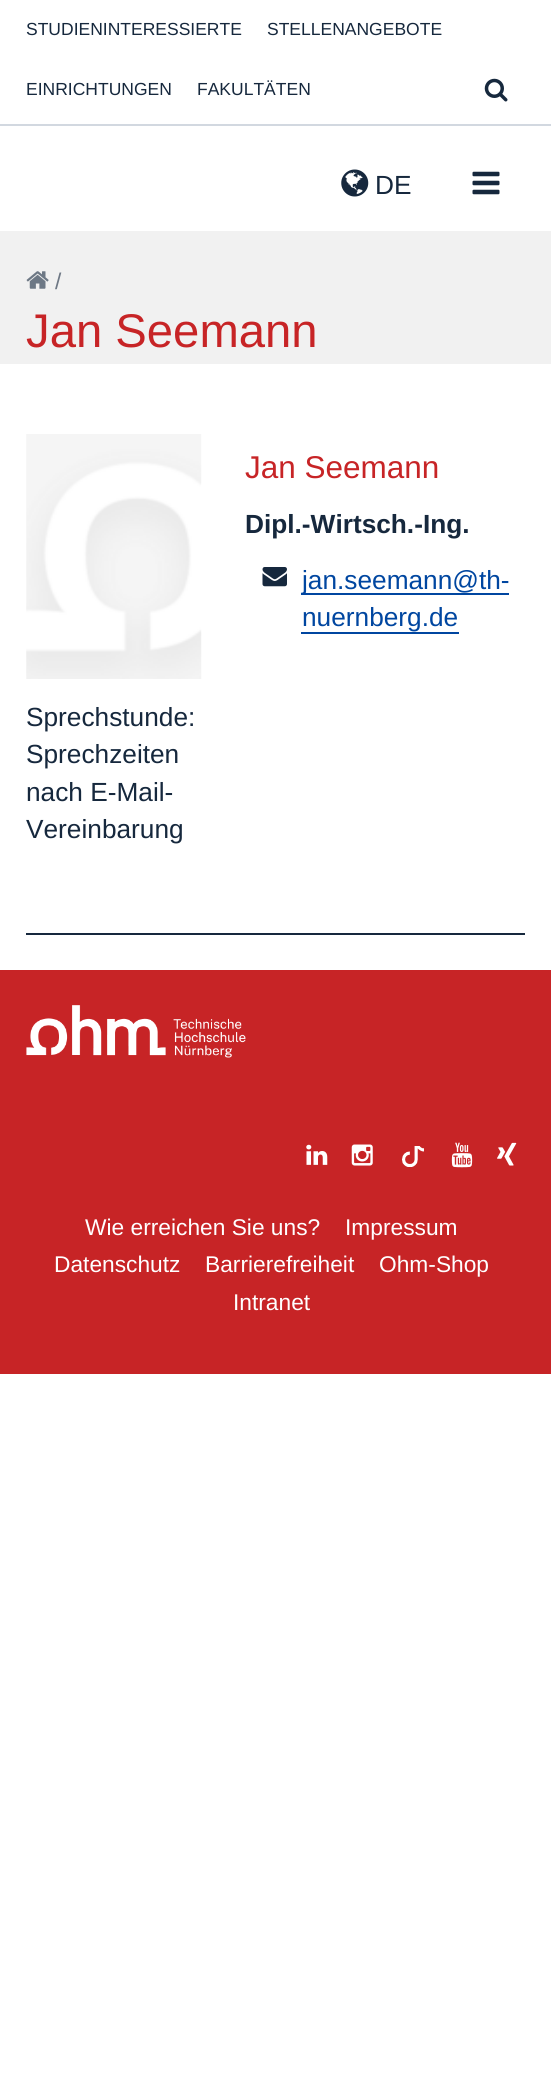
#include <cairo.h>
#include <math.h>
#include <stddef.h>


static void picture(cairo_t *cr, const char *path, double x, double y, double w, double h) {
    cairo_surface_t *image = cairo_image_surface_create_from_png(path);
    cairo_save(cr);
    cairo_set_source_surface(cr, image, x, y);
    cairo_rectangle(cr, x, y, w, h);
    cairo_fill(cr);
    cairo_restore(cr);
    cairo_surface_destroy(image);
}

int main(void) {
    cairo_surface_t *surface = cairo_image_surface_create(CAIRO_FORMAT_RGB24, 551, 2089);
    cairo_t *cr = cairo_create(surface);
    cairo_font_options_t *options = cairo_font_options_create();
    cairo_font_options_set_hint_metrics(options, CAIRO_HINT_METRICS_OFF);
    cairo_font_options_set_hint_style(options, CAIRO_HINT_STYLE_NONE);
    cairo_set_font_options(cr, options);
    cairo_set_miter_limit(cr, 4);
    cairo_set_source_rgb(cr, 1, 1, 1);
    cairo_paint(cr);
    cairo_set_source_rgb(cr, 0.824, 0.847, 0.878);
    cairo_rectangle(cr, 0, 124, 551, 2);
    cairo_fill(cr);
    cairo_select_font_face(cr, "Liberation Sans", CAIRO_FONT_SLANT_NORMAL, CAIRO_FONT_WEIGHT_NORMAL);
    cairo_set_font_size(cr, 17.5);
    cairo_set_source_rgb(cr, 0.086, 0.157, 0.239);
    cairo_move_to(cr, 26, 35);
    cairo_show_text(cr, "STUDIENINTERESSIERTE");
    cairo_move_to(cr, 267, 35);
    cairo_show_text(cr, "STELLENANGEBOTE");
    cairo_move_to(cr, 26, 95);
    cairo_show_text(cr, "EINRICHTUNGEN");
    cairo_move_to(cr, 197, 95);
    cairo_show_text(cr, "FAKULTÄTEN");
    picture(cr, "img1.png", 484, 78, 24, 24);
    picture(cr, "img2.png", 341, 169, 28, 28);
    cairo_set_font_size(cr, 26.25);
    cairo_move_to(cr, 375, 194);
    cairo_show_text(cr, "DE");
    picture(cr, "img3.png", 472, 171, 28, 24);
    cairo_set_source_rgb(cr, 0.945, 0.945, 0.945);
    cairo_rectangle(cr, 0, 231, 551, 133);
    cairo_fill(cr);
    picture(cr, "img4.png", 26, 271, 23, 18);
    cairo_set_font_size(cr, 22.75);
    cairo_set_source_rgb(cr, 0.431, 0.471, 0.522);
    cairo_move_to(cr, 55, 289);
    cairo_show_text(cr, "/");
    cairo_set_font_size(cr, 47.25);
    cairo_set_source_rgb(cr, 0.78, 0.141, 0.149);
    cairo_move_to(cr, 26, 347);
    cairo_show_text(cr, "Jan Seemann");
    cairo_set_font_size(cr, 31.5);
    cairo_move_to(cr, 245, 478);
    cairo_show_text(cr, "Jan Seemann");
    cairo_select_font_face(cr, "Liberation Sans", CAIRO_FONT_SLANT_NORMAL, CAIRO_FONT_WEIGHT_BOLD);
    cairo_set_font_size(cr, 26.25);
    cairo_set_source_rgb(cr, 0.086, 0.157, 0.239);
    cairo_move_to(cr, 245, 533);
    cairo_show_text(cr, "Dipl.-Wirtsch.-Ing.");
    picture(cr, "img5.png", 262, 567, 25, 20);
    cairo_set_source_rgb(cr, 0, 0.275, 0.627);
    cairo_rectangle(cr, 301, 593, 208, 2);
    cairo_fill(cr);
    cairo_select_font_face(cr, "Liberation Sans", CAIRO_FONT_SLANT_NORMAL, CAIRO_FONT_WEIGHT_NORMAL);
    cairo_move_to(cr, 302, 589);
    cairo_show_text(cr, "jan.seemann@th-");
    cairo_move_to(cr, 302, 626);
    cairo_show_text(cr, "nuernberg.de");
    cairo_rectangle(cr, 301, 632, 158, 2);
    cairo_fill(cr);
    picture(cr, "img6.png", 26, 434, 176, 245);
    cairo_set_source_rgb(cr, 0.086, 0.157, 0.239);
    cairo_move_to(cr, 26, 726);
    cairo_show_text(cr, "Sprechstunde:");
    cairo_move_to(cr, 26, 763);
    cairo_show_text(cr, "Sprechzeiten");
    cairo_move_to(cr, 26, 801);
    cairo_show_text(cr, "nach E-Mail-");
    cairo_move_to(cr, 26, 838);
    cairo_show_text(cr, "Vereinbarung");
    cairo_rectangle(cr, 26, 933, 499, 2);
    cairo_fill(cr);
    cairo_set_source_rgb(cr, 0.78, 0.141, 0.149);
    cairo_rectangle(cr, 0, 970, 551, 404);
    cairo_fill(cr);
    picture(cr, "img7.png", 26, 1005, 220, 53);
    picture(cr, "img8.png", 306, 1144, 22, 21);
    picture(cr, "img9.png", 351, 1144, 22, 22);
    picture(cr, "img10.png", 402, 1146, 22, 21);
    picture(cr, "img11.png", 451, 1142, 22, 26);
    picture(cr, "img12.png", 497, 1142, 20, 24);
    cairo_set_font_size(cr, 22.75);
    cairo_set_source_rgb(cr, 1, 1, 1);
    cairo_move_to(cr, 85, 1235);
    cairo_show_text(cr, "Wie erreichen Sie uns?");
    cairo_move_to(cr, 345, 1235);
    cairo_show_text(cr, "Impressum");
    cairo_move_to(cr, 54, 1272);
    cairo_show_text(cr, "Datenschutz");
    cairo_move_to(cr, 205, 1272);
    cairo_show_text(cr, "Barrierefreiheit");
    cairo_move_to(cr, 379, 1272);
    cairo_show_text(cr, "Ohm-Shop");
    cairo_move_to(cr, 233, 1310);
    cairo_show_text(cr, "Intranet");
    cairo_surface_write_to_png(surface, "page.png");
    cairo_font_options_destroy(options);
    cairo_destroy(cr);
    cairo_surface_destroy(surface);
    return 0;
}
